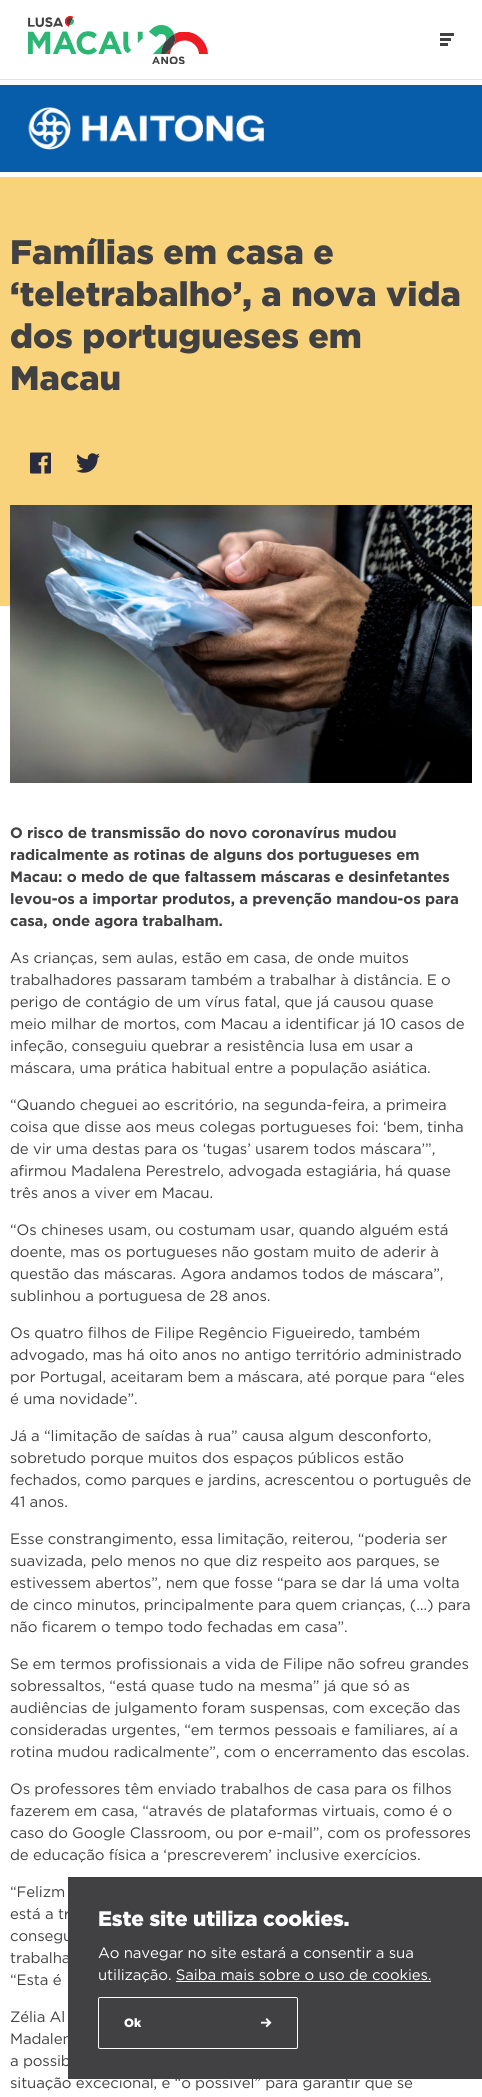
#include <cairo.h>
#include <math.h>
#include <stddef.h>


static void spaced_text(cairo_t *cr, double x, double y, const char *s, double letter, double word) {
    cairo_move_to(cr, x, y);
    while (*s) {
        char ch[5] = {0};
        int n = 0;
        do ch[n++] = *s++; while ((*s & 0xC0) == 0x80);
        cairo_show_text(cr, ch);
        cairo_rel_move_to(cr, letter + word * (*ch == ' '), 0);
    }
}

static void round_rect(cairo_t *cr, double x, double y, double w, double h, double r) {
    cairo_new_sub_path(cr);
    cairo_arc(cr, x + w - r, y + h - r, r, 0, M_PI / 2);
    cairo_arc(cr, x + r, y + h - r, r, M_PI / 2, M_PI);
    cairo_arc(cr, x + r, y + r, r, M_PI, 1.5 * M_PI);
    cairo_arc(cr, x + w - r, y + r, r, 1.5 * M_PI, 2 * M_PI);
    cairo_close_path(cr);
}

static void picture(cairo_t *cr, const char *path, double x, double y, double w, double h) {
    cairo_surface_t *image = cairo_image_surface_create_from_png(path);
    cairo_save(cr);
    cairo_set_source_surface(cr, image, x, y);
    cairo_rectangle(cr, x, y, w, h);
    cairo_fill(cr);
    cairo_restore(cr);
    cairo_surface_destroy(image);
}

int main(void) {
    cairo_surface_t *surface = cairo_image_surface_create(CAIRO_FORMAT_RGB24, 482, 2097);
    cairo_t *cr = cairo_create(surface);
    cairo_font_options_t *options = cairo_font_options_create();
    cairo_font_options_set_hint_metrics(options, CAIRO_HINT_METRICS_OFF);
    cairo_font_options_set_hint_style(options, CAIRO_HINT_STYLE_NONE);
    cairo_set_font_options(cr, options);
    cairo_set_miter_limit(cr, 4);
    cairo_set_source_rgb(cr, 1, 1, 1);
    cairo_paint(cr);
    cairo_set_source_rgb(cr, 0.886, 0.886, 0.886);
    cairo_rectangle(cr, 0, 79, 482, 1);
    cairo_fill(cr);
    picture(cr, "img1.png", 28, 16, 180, 48);
    cairo_set_source_rgb(cr, 0.255, 0.251, 0.259);
    cairo_rectangle(cr, 440, 38, 11, 3);
    cairo_fill(cr);
    cairo_rectangle(cr, 440, 33, 14, 3);
    cairo_fill(cr);
    cairo_rectangle(cr, 440, 43, 8, 3);
    cairo_fill(cr);
    picture(cr, "img2.png", 0, 85, 482, 87);
    cairo_set_source_rgb(cr, 0.969, 0.827, 0.486);
    cairo_rectangle(cr, 0, 177, 482, 328);
    cairo_fill(cr);
    cairo_select_font_face(cr, "Gotham Black", CAIRO_FONT_SLANT_NORMAL, CAIRO_FONT_WEIGHT_NORMAL);
    cairo_set_font_size(cr, 34);
    cairo_set_source_rgb(cr, 0.255, 0.251, 0.259);
    cairo_move_to(cr, 10, 264);
    cairo_show_text(cr, "Famílias em casa e");
    cairo_move_to(cr, 10, 306);
    cairo_show_text(cr, "‘teletrabalho’, a nova vida");
    cairo_move_to(cr, 10, 348);
    cairo_show_text(cr, "dos portugueses em");
    cairo_move_to(cr, 10, 390);
    cairo_show_text(cr, "Macau");
    picture(cr, "img3.png", 30, 452, 21, 22);
    picture(cr, "img4.png", 76, 453, 24, 20);
    cairo_set_source_rgb(cr, 0.969, 0.827, 0.486);
    cairo_rectangle(cr, 0, 505, 482, 101);
    cairo_fill(cr);
    picture(cr, "img5.png", 10, 505, 462, 278);
    cairo_select_font_face(cr, "Gotham", CAIRO_FONT_SLANT_NORMAL, CAIRO_FONT_WEIGHT_BOLD);
    cairo_set_font_size(cr, 15);
    cairo_set_source_rgb(cr, 0.255, 0.251, 0.259);
    spaced_text(cr, 10, 838, "O risco de transmissão do novo coronavírus mudou", -0.12, 0);
    spaced_text(cr, 10, 860, "radicalmente as rotinas de alguns dos portugueses em", -0.12, 0);
    spaced_text(cr, 10, 882, "Macau: o medo de que faltassem máscaras e desinfetantes", -0.12, 0);
    spaced_text(cr, 10, 904, "levou-os a importar produtos, a prevenção mandou-os para", -0.12, 0);
    spaced_text(cr, 10, 926, "casa, onde agora trabalham.", -0.12, 0);
    cairo_select_font_face(cr, "Gotham", CAIRO_FONT_SLANT_NORMAL, CAIRO_FONT_WEIGHT_NORMAL);
    spaced_text(cr, 10, 963, "As crianças, sem aulas, estão em casa, de onde muitos", -0.12, 0);
    spaced_text(cr, 10, 985, "trabalhadores passaram também a trabalhar à distância. E o", -0.12, 0);
    spaced_text(cr, 10, 1007, "perigo de contágio de um vírus fatal, que já causou quase", -0.12, 0);
    spaced_text(cr, 10, 1029, "meio milhar de mortos, com Macau a identificar já 10 casos de", -0.12, 0);
    spaced_text(cr, 10, 1051, "infeção, conseguiu quebrar a resistência lusa em usar a", -0.12, 0);
    spaced_text(cr, 10, 1073, "máscara, uma prática habitual entre a população asiática.", -0.12, 0);
    spaced_text(cr, 10, 1110, "“Quando cheguei ao escritório, na segunda-feira, a primeira", -0.12, 0);
    spaced_text(cr, 10, 1132, "coisa que disse aos meus colegas portugueses foi: ‘bem, tinha", -0.12, 0);
    spaced_text(cr, 10, 1154, "de vir uma destas para os ‘tugas’ usarem todos máscara’”,", -0.12, 0);
    spaced_text(cr, 10, 1176, "afirmou Madalena Perestrelo, advogada estagiária, há quase", -0.12, 0);
    spaced_text(cr, 10, 1198, "três anos a viver em Macau.", -0.12, 0);
    spaced_text(cr, 10, 1235, "“Os chineses usam, ou costumam usar, quando alguém está", -0.12, 0);
    spaced_text(cr, 10, 1257, "doente, mas os portugueses não gostam muito de aderir à", -0.12, 0);
    spaced_text(cr, 10, 1279, "questão das máscaras. Agora andamos todos de máscara”,", -0.12, 0);
    spaced_text(cr, 10, 1301, "sublinhou a portuguesa de 28 anos.", -0.12, 0);
    spaced_text(cr, 10, 1338, "Os quatro filhos de Filipe Regêncio Figueiredo, também", -0.12, 0);
    spaced_text(cr, 10, 1360, "advogado, mas há oito anos no antigo território administrado", -0.12, 0);
    spaced_text(cr, 10, 1382, "por Portugal, aceitaram bem a máscara, até porque para “eles", -0.12, 0);
    spaced_text(cr, 10, 1404, "é uma novidade”.", -0.12, 0);
    spaced_text(cr, 10, 1441, "Já a “limitação de saídas à rua” causa algum desconforto,", -0.12, 0);
    spaced_text(cr, 10, 1463, "sobretudo porque muitos dos espaços públicos estão", -0.12, 0);
    spaced_text(cr, 10, 1485, "fechados, como parques e jardins, acrescentou o português de", -0.12, 0);
    spaced_text(cr, 10, 1507, "41 anos.", -0.12, 0);
    spaced_text(cr, 10, 1544, "Esse constrangimento, essa limitação, reiterou, “poderia ser", -0.12, 0);
    spaced_text(cr, 10, 1566, "suavizada, pelo menos no que diz respeito aos parques, se", -0.12, 0);
    spaced_text(cr, 10, 1588, "estivessem abertos”, nem que fosse “para se dar lá uma volta", -0.12, 0);
    spaced_text(cr, 10, 1610, "de cinco minutos, principalmente para quem crianças, (…) para", -0.12, 0);
    spaced_text(cr, 10, 1632, "não ficarem o tempo todo fechadas em casa”.", -0.12, 0);
    spaced_text(cr, 10, 1669, "Se em termos profissionais a vida de Filipe não sofreu grandes", -0.12, 0);
    spaced_text(cr, 10, 1691, "sobressaltos, “está quase tudo na mesma” já que só as", -0.12, 0);
    spaced_text(cr, 10, 1713, "audiências de julgamento foram suspensas, com exceção das", -0.12, 0);
    spaced_text(cr, 10, 1735, "consideradas urgentes, “em termos pessoais e familiares, aí a", -0.12, 0);
    spaced_text(cr, 10, 1757, "rotina mudou radicalmente”, com o encerramento das escolas.", -0.12, 0);
    spaced_text(cr, 10, 1794, "Os professores têm enviado trabalhos de casa para os filhos", -0.12, 0);
    spaced_text(cr, 10, 1816, "fazerem em casa, “através de plataformas virtuais, como é o", -0.12, 0);
    spaced_text(cr, 10, 1838, "caso do Google Classroom, ou por e-mail”, com os professores", -0.12, 0);
    spaced_text(cr, 10, 1860, "de educação física a ‘prescreverem’ inclusive exercícios.", -0.12, 0);
    spaced_text(cr, 10, 1897, "“Felizm", -0.12, 0);
    spaced_text(cr, 10, 1919, "está a tr", -0.12, 0);
    spaced_text(cr, 10, 1941, "consegu", -0.12, 0);
    spaced_text(cr, 10, 1963, "trabalha", -0.12, 0);
    spaced_text(cr, 10, 1985, "“Esta é", -0.12, 0);
    spaced_text(cr, 10, 2022, "Zélia Al", -0.12, 0);
    spaced_text(cr, 10, 2044, "Madalen", -0.12, 0);
    spaced_text(cr, 10, 2066, "a possib", -0.12, 0);
    spaced_text(cr, 10, 2088, "situação excecional, é “o possível” para garantir que se", -0.12, 0);
    cairo_rectangle(cr, 68, 1877, 414, 202);
    cairo_fill(cr);
    cairo_select_font_face(cr, "Gotham Black", CAIRO_FONT_SLANT_NORMAL, CAIRO_FONT_WEIGHT_NORMAL);
    cairo_set_font_size(cr, 21);
    cairo_set_source_rgb(cr, 1, 1, 1);
    spaced_text(cr, 98, 1926, "Este site utiliza cookies.", -0.2, 0);
    cairo_select_font_face(cr, "Gotham", CAIRO_FONT_SLANT_NORMAL, CAIRO_FONT_WEIGHT_NORMAL);
    cairo_set_font_size(cr, 15);
    spaced_text(cr, 98, 1958, "Ao navegar no site estará a consentir a sua", -0.12, 0);
    spaced_text(cr, 98, 1980, "utilização. Saiba mais sobre o uso de cookies.", -0.12, 0);
    cairo_rectangle(cr, 176, 1981, 255, 1);
    cairo_fill(cr);
    round_rect(cr, 98.5, 1997.5, 199, 51, 1.5);
    cairo_set_line_width(cr, 1);
    cairo_stroke(cr);
    cairo_select_font_face(cr, "Gotham Black", CAIRO_FONT_SLANT_NORMAL, CAIRO_FONT_WEIGHT_NORMAL);
    cairo_set_font_size(cr, 12);
    cairo_move_to(cr, 124, 2027);
    cairo_show_text(cr, "Ok");
    picture(cr, "img6.png", 261, 2018, 11, 10);
    cairo_surface_write_to_png(surface, "page.png");
    cairo_font_options_destroy(options);
    cairo_destroy(cr);
    cairo_surface_destroy(surface);
    return 0;
}
